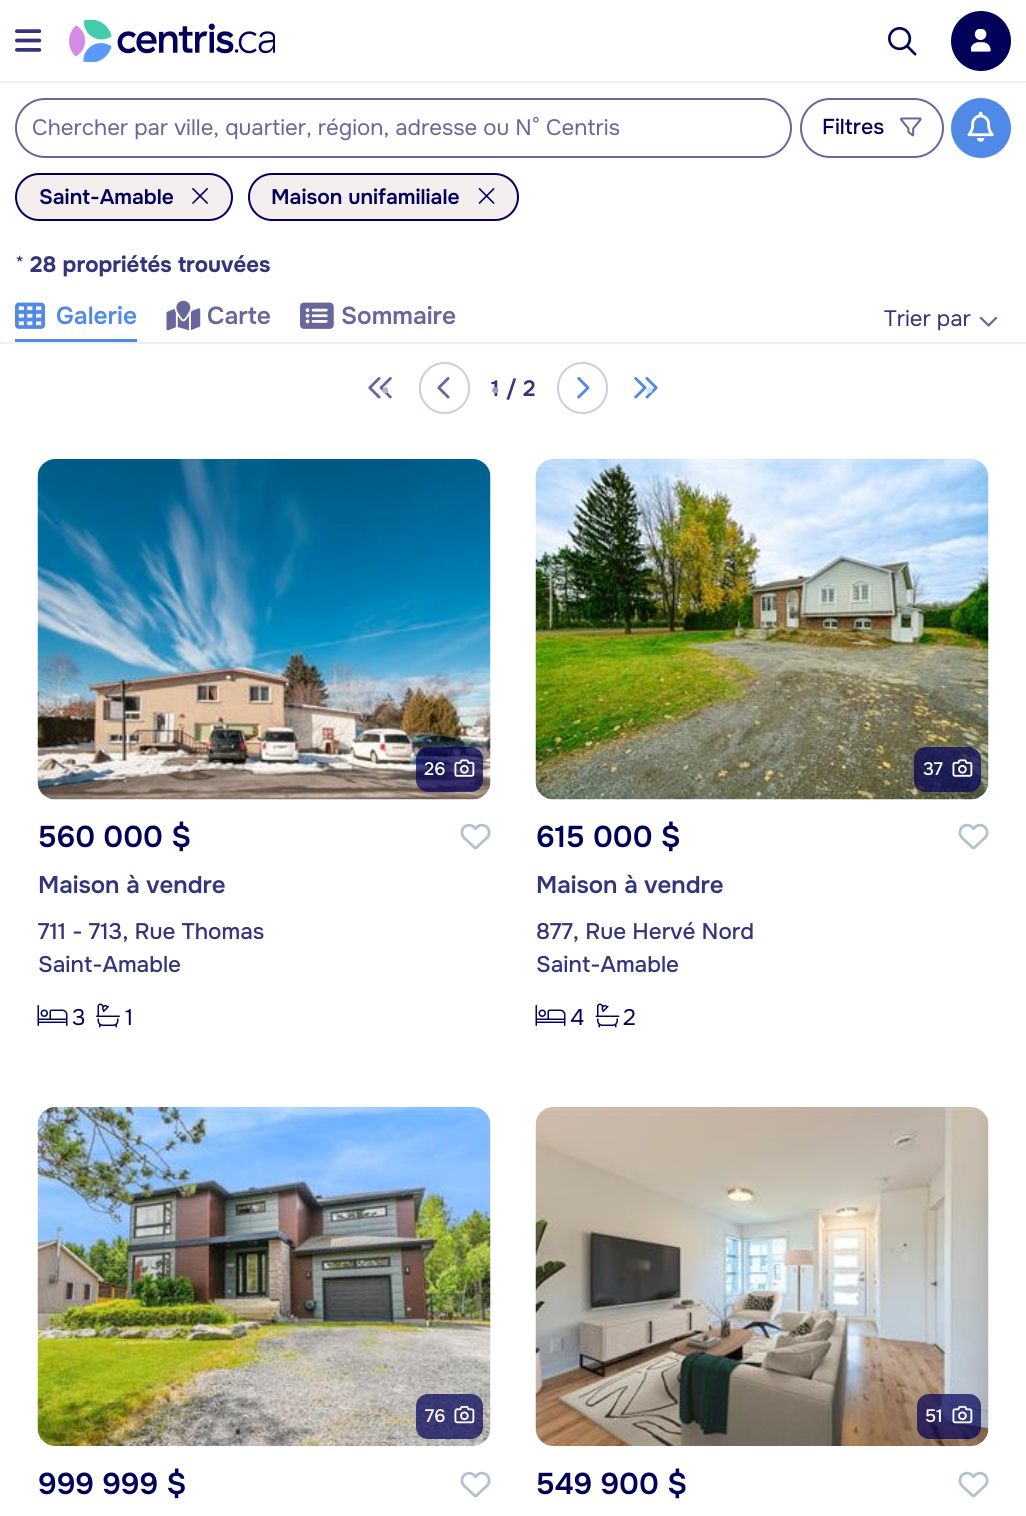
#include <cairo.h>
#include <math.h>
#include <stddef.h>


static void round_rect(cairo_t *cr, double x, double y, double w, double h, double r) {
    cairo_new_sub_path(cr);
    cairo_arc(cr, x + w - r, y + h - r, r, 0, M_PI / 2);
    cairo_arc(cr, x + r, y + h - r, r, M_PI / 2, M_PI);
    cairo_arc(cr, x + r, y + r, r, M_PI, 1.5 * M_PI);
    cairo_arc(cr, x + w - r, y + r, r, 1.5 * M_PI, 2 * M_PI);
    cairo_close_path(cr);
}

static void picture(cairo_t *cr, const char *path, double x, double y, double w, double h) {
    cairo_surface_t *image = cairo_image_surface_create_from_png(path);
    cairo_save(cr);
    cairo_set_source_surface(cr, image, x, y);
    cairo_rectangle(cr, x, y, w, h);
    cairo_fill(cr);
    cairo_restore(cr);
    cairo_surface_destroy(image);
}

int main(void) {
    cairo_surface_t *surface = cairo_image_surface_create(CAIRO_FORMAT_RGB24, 1026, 1516);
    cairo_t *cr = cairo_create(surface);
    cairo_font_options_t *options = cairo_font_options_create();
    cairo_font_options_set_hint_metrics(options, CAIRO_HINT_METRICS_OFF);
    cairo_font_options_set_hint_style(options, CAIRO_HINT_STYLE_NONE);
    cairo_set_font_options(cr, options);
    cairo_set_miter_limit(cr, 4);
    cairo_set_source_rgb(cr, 1, 1, 1);
    cairo_paint(cr);
    cairo_set_source_rgb(cr, 0.957, 0.933, 0.933);
    cairo_rectangle(cr, 0, 81, 1026, 2);
    cairo_fill(cr);
    picture(cr, "img1.png", 15, 29, 27, 23);
    picture(cr, "img2.png", 69, 20, 206, 42);
    picture(cr, "img3.png", 888, 27, 29, 29);
    cairo_set_source_rgb(cr, 0.004, 0.004, 0.349);
    cairo_arc(cr, 981, 41, 30, 0, 2 * M_PI);
    cairo_fill(cr);
    picture(cr, "img4.png", 971, 29, 20, 23);
    round_rect(cr, 16, 99, 775, 58, 29);
    cairo_set_source_rgb(cr, 0.404, 0.404, 0.608);
    cairo_stroke(cr);
    cairo_select_font_face(cr, "Onest", CAIRO_FONT_SLANT_NORMAL, CAIRO_FONT_WEIGHT_NORMAL);
    cairo_set_font_size(cr, 22.2);
    cairo_move_to(cr, 32, 135);
    cairo_show_text(cr, "Chercher par ville, quartier, région, adresse ou N° Centris");
    round_rect(cr, 801, 99, 142, 58, 29);
    cairo_stroke(cr);
    cairo_select_font_face(cr, "Onest Medium", CAIRO_FONT_SLANT_NORMAL, CAIRO_FONT_WEIGHT_NORMAL);
    cairo_set_font_size(cr, 21.5);
    cairo_set_source_rgb(cr, 0.004, 0.004, 0.349);
    cairo_move_to(cr, 822, 134);
    cairo_show_text(cr, "Filtres");
    picture(cr, "img5.png", 900, 117, 22, 20);
    cairo_set_source_rgb(cr, 0.318, 0.537, 0.902);
    cairo_arc(cr, 981, 128, 30, 0, 2 * M_PI);
    cairo_fill(cr);
    picture(cr, "img6.png", 967, 111, 27, 31);
    cairo_set_source_rgb(cr, 0.957, 0.933, 0.933);
    round_rect(cr, 16, 174, 216, 46, 23);
    cairo_fill_preserve(cr);
    cairo_set_source_rgb(cr, 0.004, 0.004, 0.349);
    cairo_stroke(cr);
    cairo_select_font_face(cr, "Onest SemiBold", CAIRO_FONT_SLANT_NORMAL, CAIRO_FONT_WEIGHT_NORMAL);
    cairo_set_font_size(cr, 21);
    cairo_move_to(cr, 39, 204);
    cairo_show_text(cr, "Saint-Amable");
    picture(cr, "img7.png", 192, 188, 16, 16);
    cairo_set_source_rgb(cr, 0.957, 0.933, 0.933);
    round_rect(cr, 249, 174, 269, 46, 23);
    cairo_fill_preserve(cr);
    cairo_set_source_rgb(cr, 0.004, 0.004, 0.349);
    cairo_stroke(cr);
    cairo_move_to(cr, 271, 204);
    cairo_show_text(cr, "Maison unifamiliale");
    picture(cr, "img8.png", 478, 188, 17, 16);
    cairo_set_source_rgb(cr, 0.957, 0.933, 0.933);
    cairo_rectangle(cr, 0, 342, 1026, 2);
    cairo_fill(cr);
    cairo_select_font_face(cr, "Onest", CAIRO_FONT_SLANT_NORMAL, CAIRO_FONT_WEIGHT_NORMAL);
    cairo_set_font_size(cr, 22.2);
    cairo_set_source_rgb(cr, 0.204, 0.204, 0.478);
    cairo_move_to(cr, 15, 272);
    cairo_show_text(cr, "*");
    cairo_select_font_face(cr, "Onest", CAIRO_FONT_SLANT_NORMAL, CAIRO_FONT_WEIGHT_BOLD);
    cairo_move_to(cr, 30, 272);
    cairo_show_text(cr, "28 propriétés trouvées");
    cairo_set_source_rgb(cr, 0.318, 0.537, 0.902);
    cairo_rectangle(cr, 15, 339, 122, 3);
    cairo_fill(cr);
    picture(cr, "img9.png", 15, 302, 30, 27);
    cairo_select_font_face(cr, "Onest SemiBold", CAIRO_FONT_SLANT_NORMAL, CAIRO_FONT_WEIGHT_NORMAL);
    cairo_set_font_size(cr, 24.5);
    cairo_move_to(cr, 56, 324);
    cairo_show_text(cr, "Galerie");
    picture(cr, "img10.png", 166, 300, 35, 31);
    cairo_set_source_rgb(cr, 0.404, 0.404, 0.608);
    cairo_move_to(cr, 207, 324);
    cairo_show_text(cr, "Carte");
    picture(cr, "img11.png", 300, 302, 34, 27);
    cairo_move_to(cr, 341, 324);
    cairo_show_text(cr, "Sommaire");
    cairo_select_font_face(cr, "Onest", CAIRO_FONT_SLANT_NORMAL, CAIRO_FONT_WEIGHT_NORMAL);
    cairo_set_font_size(cr, 22.2);
    cairo_set_source_rgb(cr, 0.204, 0.204, 0.478);
    cairo_move_to(cr, 884, 326);
    cairo_show_text(cr, "Trier par");
    picture(cr, "img12.png", 979, 316, 19, 11);
    picture(cr, "img13.png", 368, 377, 24, 22);
    cairo_select_font_face(cr, "Onest SemiBold", CAIRO_FONT_SLANT_NORMAL, CAIRO_FONT_WEIGHT_NORMAL);
    cairo_set_font_size(cr, 24);
    cairo_set_source_rgb(cr, 0.71, 0.71, 0.808);
    cairo_move_to(cr, 381, 399);
    cairo_show_text(cr, "•");
    round_rect(cr, 420, 363, 49, 50, 24.5);
    cairo_set_source_rgb(cr, 0.8, 0.8, 0.871);
    cairo_stroke(cr);
    picture(cr, "img14.png", 437, 377, 13, 22);
    cairo_set_font_size(cr, 22.2);
    cairo_set_source_rgb(cr, 0.204, 0.204, 0.478);
    cairo_move_to(cr, 491, 396);
    cairo_show_text(cr, "1 / 2");
    cairo_set_font_size(cr, 24);
    cairo_set_source_rgb(cr, 0.608, 0.608, 0.741);
    cairo_move_to(cr, 491, 399);
    cairo_show_text(cr, "•");
    round_rect(cr, 558, 363, 49, 50, 24.5);
    cairo_set_source_rgb(cr, 0.8, 0.8, 0.871);
    cairo_stroke(cr);
    picture(cr, "img15.png", 577, 377, 13, 22);
    picture(cr, "img16.png", 634, 377, 24, 22);
    cairo_set_source_rgb(cr, 0.839, 0.89, 0.976);
    cairo_move_to(cr, 645, 399);
    cairo_show_text(cr, "•");
    picture(cr, "img17.png", 37, 459, 454, 341);
    cairo_set_source_rgba(cr, 0.004, 0.004, 0.349, 0.7);
    round_rect(cr, 416, 747, 67, 45, 12);
    cairo_fill(cr);
    cairo_select_font_face(cr, "Onest Medium", CAIRO_FONT_SLANT_NORMAL, CAIRO_FONT_WEIGHT_NORMAL);
    cairo_set_font_size(cr, 18);
    cairo_set_source_rgb(cr, 1, 1, 1);
    cairo_move_to(cr, 424, 775);
    cairo_show_text(cr, "26");
    picture(cr, "img18.png", 454, 759, 21, 18);
    cairo_select_font_face(cr, "Onest SemiBold", CAIRO_FONT_SLANT_NORMAL, CAIRO_FONT_WEIGHT_NORMAL);
    cairo_set_font_size(cr, 30);
    cairo_set_source_rgb(cr, 0.004, 0.004, 0.349);
    cairo_move_to(cr, 38, 847);
    cairo_show_text(cr, "560 000 $");
    picture(cr, "img19.png", 460, 823, 31, 27);
    cairo_set_font_size(cr, 24);
    cairo_set_source_rgb(cr, 0.204, 0.204, 0.478);
    cairo_move_to(cr, 38, 893);
    cairo_show_text(cr, "Maison à vendre");
    cairo_save(cr);
    cairo_rectangle(cr, 38, 915, 448, 33);
    cairo_clip(cr);
    cairo_select_font_face(cr, "Onest Medium", CAIRO_FONT_SLANT_NORMAL, CAIRO_FONT_WEIGHT_NORMAL);
    cairo_set_font_size(cr, 22.5);
    cairo_move_to(cr, 38, 939);
    cairo_show_text(cr, "711 - 713, Rue Thomas");
    cairo_restore(cr);
    cairo_select_font_face(cr, "Onest Medium", CAIRO_FONT_SLANT_NORMAL, CAIRO_FONT_WEIGHT_NORMAL);
    cairo_set_font_size(cr, 22.5);
    cairo_move_to(cr, 38, 972);
    cairo_show_text(cr, "Saint-Amable");
    picture(cr, "img20.png", 37, 1005, 31, 21);
    cairo_select_font_face(cr, "Onest", CAIRO_FONT_SLANT_NORMAL, CAIRO_FONT_WEIGHT_NORMAL);
    cairo_set_source_rgb(cr, 0.004, 0.004, 0.349);
    cairo_move_to(cr, 72, 1025);
    cairo_show_text(cr, "3");
    picture(cr, "img21.png", 96, 1003, 24, 25);
    cairo_move_to(cr, 125, 1025);
    cairo_show_text(cr, "1");
    picture(cr, "img22.png", 535, 459, 454, 341);
    cairo_set_source_rgba(cr, 0.004, 0.004, 0.349, 0.7);
    round_rect(cr, 914, 747, 67, 45, 12);
    cairo_fill(cr);
    cairo_select_font_face(cr, "Onest Medium", CAIRO_FONT_SLANT_NORMAL, CAIRO_FONT_WEIGHT_NORMAL);
    cairo_set_font_size(cr, 18);
    cairo_set_source_rgb(cr, 1, 1, 1);
    cairo_move_to(cr, 923, 775);
    cairo_show_text(cr, "37");
    picture(cr, "img23.png", 952, 759, 21, 18);
    cairo_select_font_face(cr, "Onest SemiBold", CAIRO_FONT_SLANT_NORMAL, CAIRO_FONT_WEIGHT_NORMAL);
    cairo_set_font_size(cr, 30);
    cairo_set_source_rgb(cr, 0.004, 0.004, 0.349);
    cairo_move_to(cr, 536, 847);
    cairo_show_text(cr, "615 000 $");
    picture(cr, "img19.png", 958, 823, 31, 27);
    cairo_set_font_size(cr, 24);
    cairo_set_source_rgb(cr, 0.204, 0.204, 0.478);
    cairo_move_to(cr, 536, 893);
    cairo_show_text(cr, "Maison à vendre");
    cairo_select_font_face(cr, "Onest Medium", CAIRO_FONT_SLANT_NORMAL, CAIRO_FONT_WEIGHT_NORMAL);
    cairo_set_font_size(cr, 22.5);
    cairo_move_to(cr, 536, 939);
    cairo_show_text(cr, "877, Rue Hervé Nord");
    cairo_move_to(cr, 536, 972);
    cairo_show_text(cr, "Saint-Amable");
    picture(cr, "img20.png", 535, 1005, 31, 21);
    cairo_select_font_face(cr, "Onest", CAIRO_FONT_SLANT_NORMAL, CAIRO_FONT_WEIGHT_NORMAL);
    cairo_set_source_rgb(cr, 0.004, 0.004, 0.349);
    cairo_move_to(cr, 570, 1025);
    cairo_show_text(cr, "4");
    picture(cr, "img24.png", 595, 1003, 25, 25);
    cairo_move_to(cr, 623, 1025);
    cairo_show_text(cr, "2");
    picture(cr, "img25.png", 37, 1107, 454, 339);
    cairo_set_source_rgba(cr, 0.004, 0.004, 0.349, 0.7);
    round_rect(cr, 416, 1394, 67, 45, 12);
    cairo_fill(cr);
    cairo_select_font_face(cr, "Onest Medium", CAIRO_FONT_SLANT_NORMAL, CAIRO_FONT_WEIGHT_NORMAL);
    cairo_set_font_size(cr, 18);
    cairo_set_source_rgb(cr, 1, 1, 1);
    cairo_move_to(cr, 425, 1422);
    cairo_show_text(cr, "76");
    picture(cr, "img26.png", 454, 1405, 21, 19);
    cairo_select_font_face(cr, "Onest SemiBold", CAIRO_FONT_SLANT_NORMAL, CAIRO_FONT_WEIGHT_NORMAL);
    cairo_set_font_size(cr, 30);
    cairo_set_source_rgb(cr, 0.004, 0.004, 0.349);
    cairo_move_to(cr, 38, 1494);
    cairo_show_text(cr, "999 999 $");
    picture(cr, "img19.png", 460, 1471, 31, 27);
    picture(cr, "img27.png", 535, 1107, 454, 339);
    cairo_set_source_rgba(cr, 0.004, 0.004, 0.349, 0.7);
    round_rect(cr, 917, 1394, 64, 45, 12);
    cairo_fill(cr);
    cairo_select_font_face(cr, "Onest Medium", CAIRO_FONT_SLANT_NORMAL, CAIRO_FONT_WEIGHT_NORMAL);
    cairo_set_font_size(cr, 18);
    cairo_set_source_rgb(cr, 1, 1, 1);
    cairo_move_to(cr, 925, 1422);
    cairo_show_text(cr, "51");
    picture(cr, "img28.png", 952, 1405, 21, 19);
    cairo_select_font_face(cr, "Onest SemiBold", CAIRO_FONT_SLANT_NORMAL, CAIRO_FONT_WEIGHT_NORMAL);
    cairo_set_font_size(cr, 30);
    cairo_set_source_rgb(cr, 0.004, 0.004, 0.349);
    cairo_move_to(cr, 536, 1494);
    cairo_show_text(cr, "549 900 $");
    picture(cr, "img19.png", 958, 1471, 31, 27);
    cairo_surface_write_to_png(surface, "page.png");
    cairo_font_options_destroy(options);
    cairo_destroy(cr);
    cairo_surface_destroy(surface);
    return 0;
}
